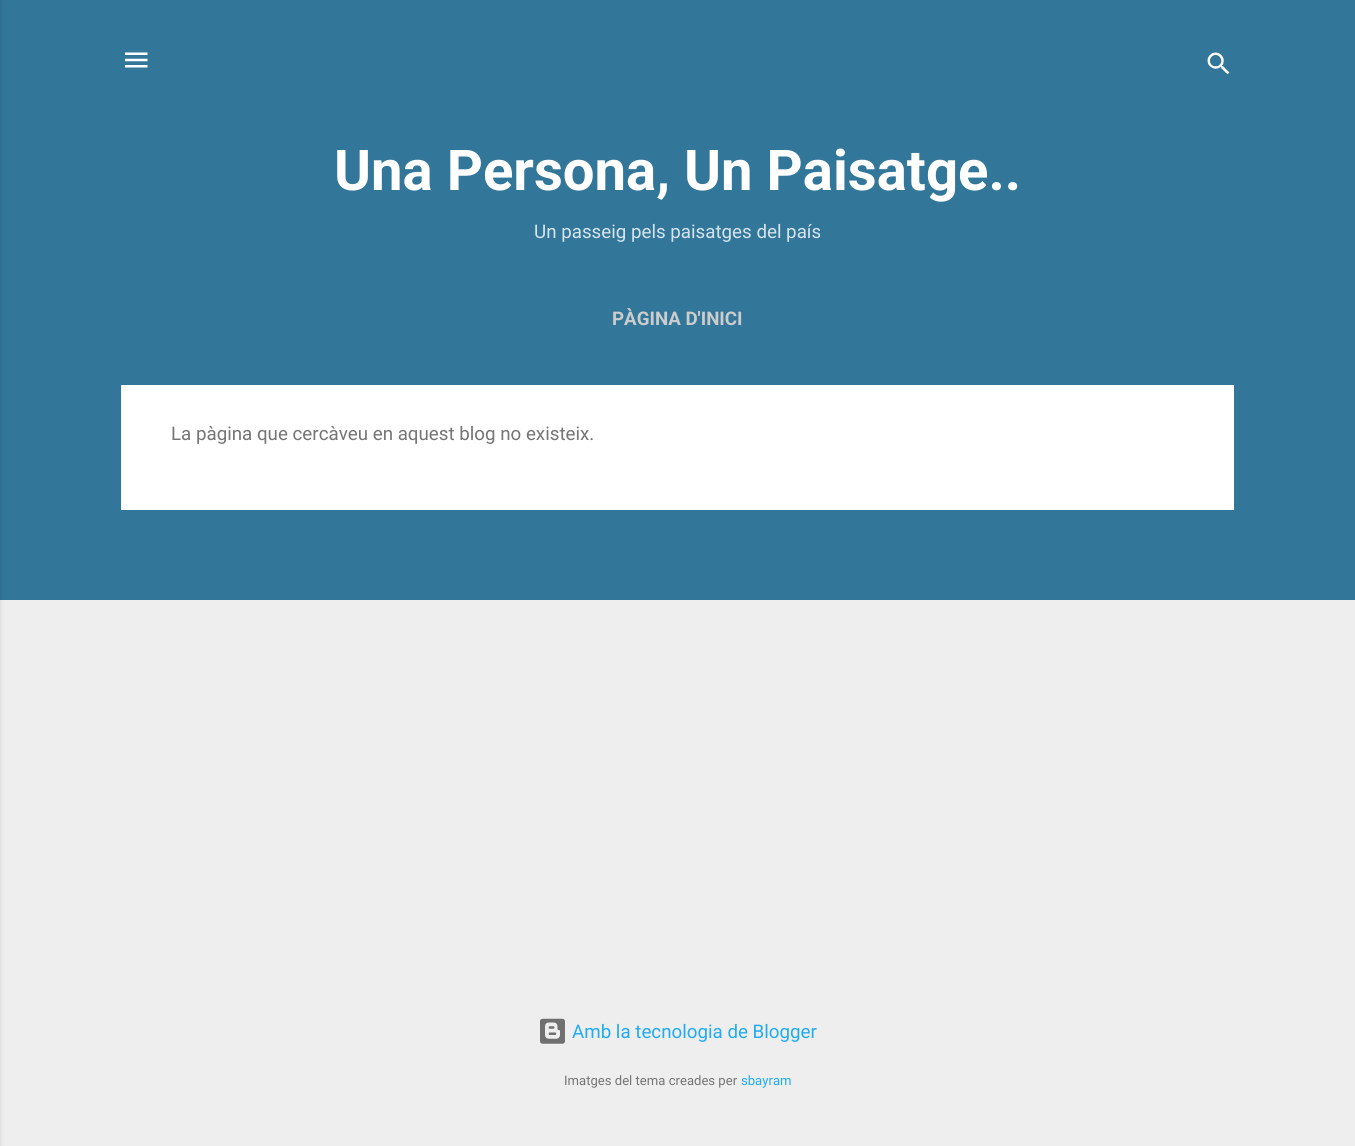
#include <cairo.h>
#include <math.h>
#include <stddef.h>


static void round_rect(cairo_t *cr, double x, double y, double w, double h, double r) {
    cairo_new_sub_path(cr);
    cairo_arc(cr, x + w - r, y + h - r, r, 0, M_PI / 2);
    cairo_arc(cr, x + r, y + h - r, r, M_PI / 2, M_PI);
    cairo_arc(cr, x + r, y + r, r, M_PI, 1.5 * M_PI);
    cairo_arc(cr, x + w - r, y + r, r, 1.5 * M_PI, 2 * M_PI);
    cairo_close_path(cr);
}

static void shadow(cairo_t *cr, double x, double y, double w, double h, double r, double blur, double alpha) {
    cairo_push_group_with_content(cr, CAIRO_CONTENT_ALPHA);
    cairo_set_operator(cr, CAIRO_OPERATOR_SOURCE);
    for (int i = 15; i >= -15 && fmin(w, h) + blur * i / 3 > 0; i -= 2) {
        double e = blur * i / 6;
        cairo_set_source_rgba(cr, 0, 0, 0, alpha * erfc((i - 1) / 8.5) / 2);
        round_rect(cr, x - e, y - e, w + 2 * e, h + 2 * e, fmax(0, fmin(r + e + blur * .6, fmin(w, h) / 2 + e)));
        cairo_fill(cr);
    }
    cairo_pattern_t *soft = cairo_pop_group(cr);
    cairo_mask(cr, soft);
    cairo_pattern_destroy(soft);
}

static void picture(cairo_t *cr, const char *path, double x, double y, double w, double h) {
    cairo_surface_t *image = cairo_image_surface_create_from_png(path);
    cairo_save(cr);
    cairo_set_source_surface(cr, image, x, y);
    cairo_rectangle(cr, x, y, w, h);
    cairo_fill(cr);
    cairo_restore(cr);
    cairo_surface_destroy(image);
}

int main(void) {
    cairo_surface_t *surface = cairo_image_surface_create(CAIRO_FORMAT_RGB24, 1355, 1146);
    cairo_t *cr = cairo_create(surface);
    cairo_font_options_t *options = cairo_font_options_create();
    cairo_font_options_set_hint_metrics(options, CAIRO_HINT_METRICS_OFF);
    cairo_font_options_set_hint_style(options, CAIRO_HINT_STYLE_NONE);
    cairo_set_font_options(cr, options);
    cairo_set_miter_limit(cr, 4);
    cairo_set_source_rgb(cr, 0.933, 0.933, 0.933);
    cairo_paint(cr);
    cairo_set_source_rgb(cr, 0.196, 0.463, 0.604);
    cairo_rectangle(cr, 0, 0, 1355, 600);
    cairo_fill(cr);
    cairo_set_source_rgb(cr, 0, 0, 0);
    shadow(cr, -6, 1, 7, 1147, 0, 2, 0.1);
    picture(cr, "img1.png", 125, 52, 23, 16);
    picture(cr, "img2.png", 1207, 52, 23, 23);
    cairo_select_font_face(cr, "Roboto", CAIRO_FONT_SLANT_NORMAL, CAIRO_FONT_WEIGHT_BOLD);
    cairo_set_font_size(cr, 56.25);
    cairo_set_source_rgb(cr, 1, 1, 1);
    cairo_move_to(cr, 334, 190);
    cairo_show_text(cr, "Una Persona, Un Paisatge..");
    cairo_select_font_face(cr, "Roboto", CAIRO_FONT_SLANT_NORMAL, CAIRO_FONT_WEIGHT_NORMAL);
    cairo_set_font_size(cr, 18.75);
    cairo_set_source_rgb(cr, 0.839, 0.894, 0.922);
    cairo_move_to(cr, 534, 238);
    cairo_show_text(cr, "Un passeig pels paisatges del país");
    cairo_select_font_face(cr, "Roboto", CAIRO_FONT_SLANT_NORMAL, CAIRO_FONT_WEIGHT_BOLD);
    cairo_set_source_rgb(cr, 0.8, 0.8, 0.8);
    cairo_move_to(cr, 612, 325);
    cairo_show_text(cr, "PÀGINA D'INICI");
    cairo_set_source_rgb(cr, 1, 1, 1);
    cairo_rectangle(cr, 121, 385, 1113, 125);
    cairo_fill(cr);
    cairo_select_font_face(cr, "Roboto", CAIRO_FONT_SLANT_NORMAL, CAIRO_FONT_WEIGHT_NORMAL);
    cairo_set_source_rgb(cr, 0.459, 0.459, 0.459);
    cairo_move_to(cr, 171, 440);
    cairo_show_text(cr, "La pàgina que cercàveu en aquest blog no existeix.");
    picture(cr, "img3.png", 540, 1018, 25, 26);
    cairo_set_source_rgb(cr, 0.129, 0.671, 0.953);
    cairo_move_to(cr, 572, 1038);
    cairo_show_text(cr, "Amb la tecnologia de Blogger");
    cairo_set_font_size(cr, 13.1);
    cairo_set_source_rgb(cr, 0.459, 0.459, 0.459);
    cairo_move_to(cr, 564, 1085);
    cairo_show_text(cr, "Imatges del tema creades per");
    cairo_set_source_rgb(cr, 0.129, 0.671, 0.953);
    cairo_move_to(cr, 741, 1085);
    cairo_show_text(cr, "sbayram");
    cairo_surface_write_to_png(surface, "page.png");
    cairo_font_options_destroy(options);
    cairo_destroy(cr);
    cairo_surface_destroy(surface);
    return 0;
}
